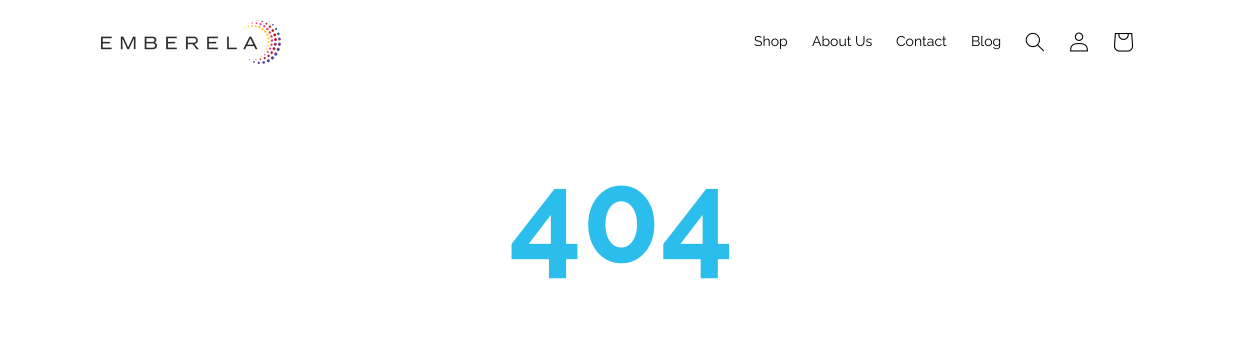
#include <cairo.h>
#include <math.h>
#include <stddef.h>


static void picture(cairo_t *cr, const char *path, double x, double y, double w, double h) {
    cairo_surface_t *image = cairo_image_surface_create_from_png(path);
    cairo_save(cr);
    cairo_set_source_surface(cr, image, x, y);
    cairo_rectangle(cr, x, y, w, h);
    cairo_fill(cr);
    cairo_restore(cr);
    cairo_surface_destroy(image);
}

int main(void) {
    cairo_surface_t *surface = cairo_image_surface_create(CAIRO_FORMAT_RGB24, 1242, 342);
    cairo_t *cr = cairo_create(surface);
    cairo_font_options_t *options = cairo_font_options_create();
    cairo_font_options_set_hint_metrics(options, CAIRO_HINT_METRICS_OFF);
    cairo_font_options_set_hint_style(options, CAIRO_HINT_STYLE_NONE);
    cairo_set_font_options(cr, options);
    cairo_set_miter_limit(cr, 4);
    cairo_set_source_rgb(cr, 1, 1, 1);
    cairo_paint(cr);
    picture(cr, "img1.png", 101, 20, 180, 44);
    cairo_select_font_face(cr, "Raleway", CAIRO_FONT_SLANT_NORMAL, CAIRO_FONT_WEIGHT_NORMAL);
    cairo_set_font_size(cr, 14);
    cairo_set_source_rgb(cr, 0, 0, 0);
    cairo_move_to(cr, 754, 46);
    cairo_show_text(cr, "Shop");
    cairo_move_to(cr, 812, 46);
    cairo_show_text(cr, "About Us");
    cairo_move_to(cr, 896, 46);
    cairo_show_text(cr, "Contact");
    cairo_move_to(cr, 971, 46);
    cairo_show_text(cr, "Blog");
    picture(cr, "img2.png", 1025, 32, 19, 20);
    picture(cr, "img3.png", 1070, 32, 18, 20);
    picture(cr, "img4.png", 1114, 33, 20, 19);
    cairo_select_font_face(cr, "Raleway", CAIRO_FONT_SLANT_NORMAL, CAIRO_FONT_WEIGHT_BOLD);
    cairo_set_font_size(cr, 128);
    cairo_set_source_rgb(cr, 0.169, 0.741, 0.925);
    cairo_move_to(cr, 509, 262);
    cairo_show_text(cr, "404");
    cairo_surface_write_to_png(surface, "page.png");
    cairo_font_options_destroy(options);
    cairo_destroy(cr);
    cairo_surface_destroy(surface);
    return 0;
}
